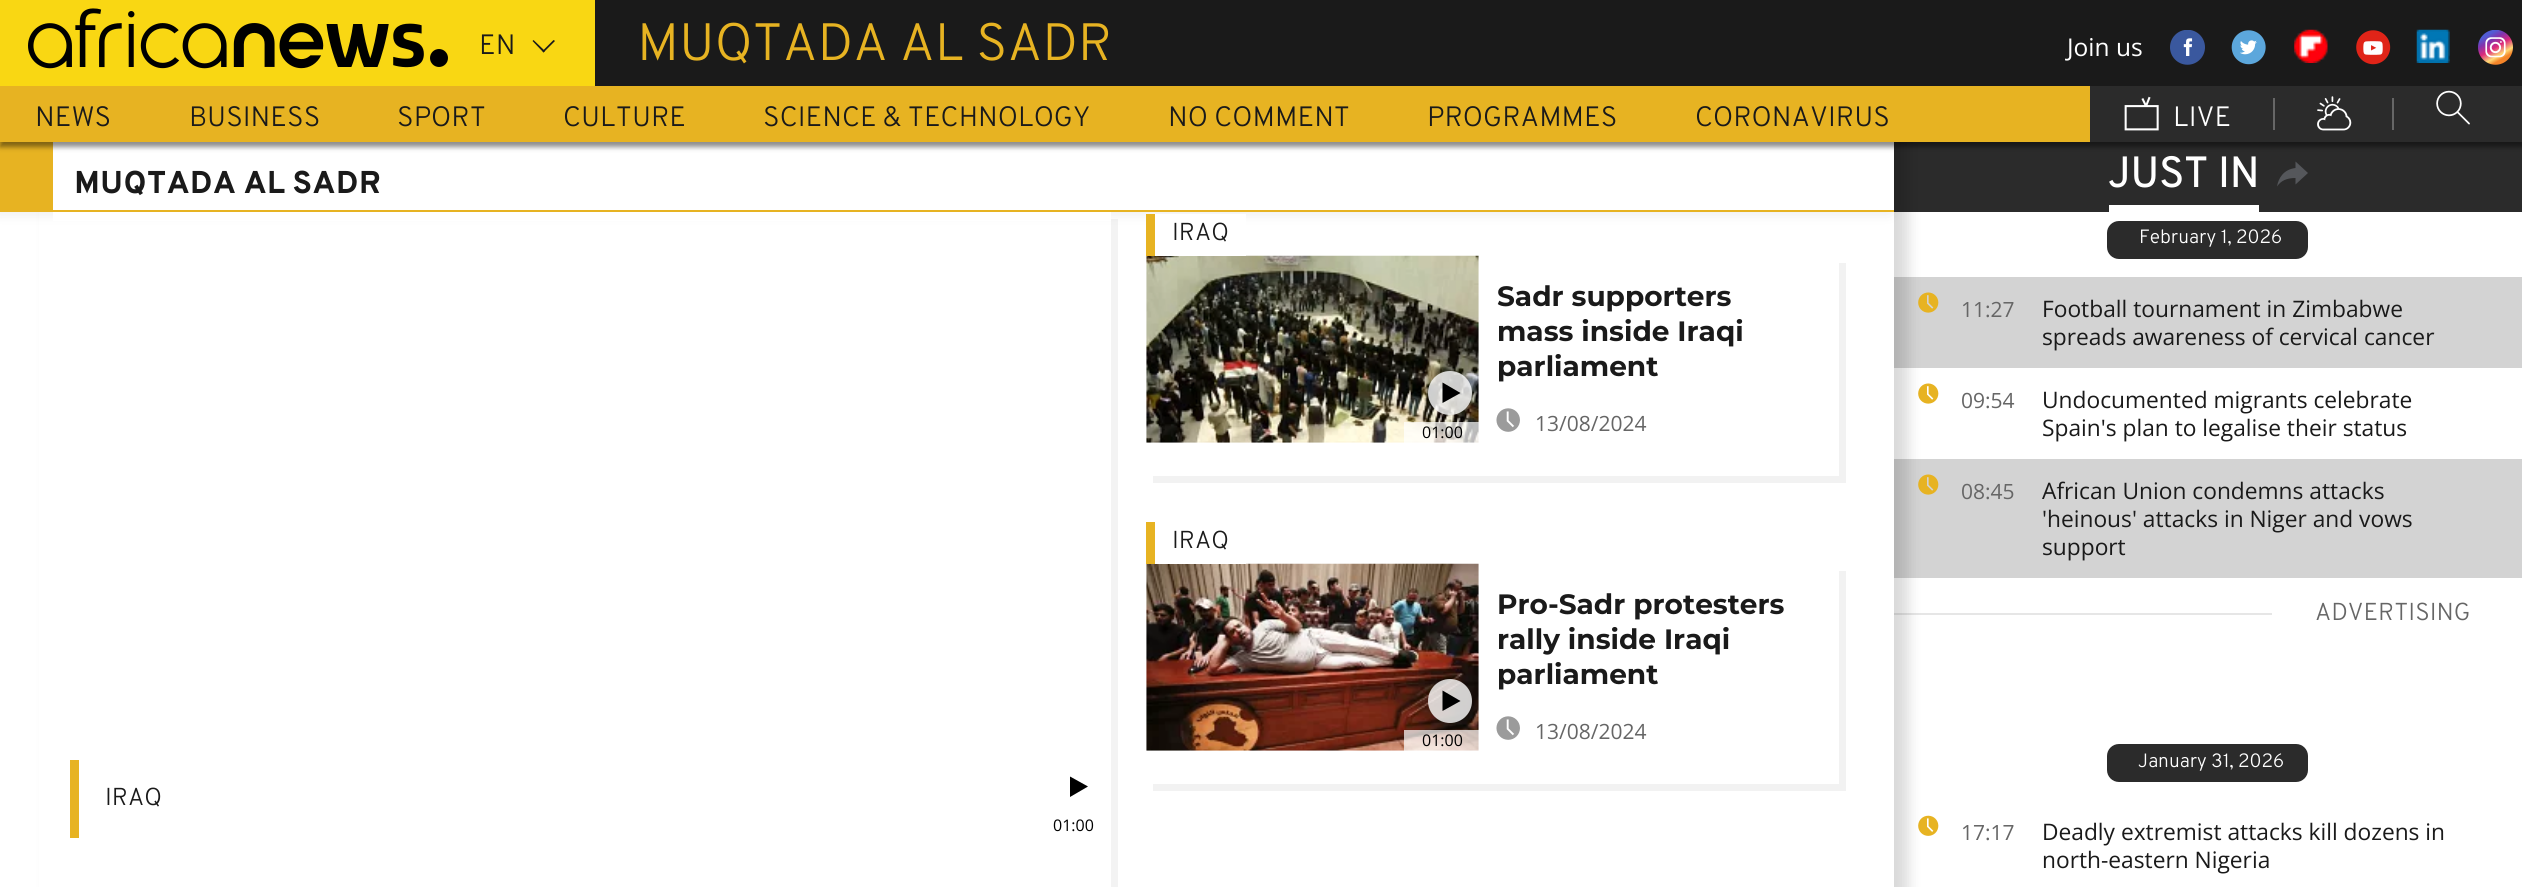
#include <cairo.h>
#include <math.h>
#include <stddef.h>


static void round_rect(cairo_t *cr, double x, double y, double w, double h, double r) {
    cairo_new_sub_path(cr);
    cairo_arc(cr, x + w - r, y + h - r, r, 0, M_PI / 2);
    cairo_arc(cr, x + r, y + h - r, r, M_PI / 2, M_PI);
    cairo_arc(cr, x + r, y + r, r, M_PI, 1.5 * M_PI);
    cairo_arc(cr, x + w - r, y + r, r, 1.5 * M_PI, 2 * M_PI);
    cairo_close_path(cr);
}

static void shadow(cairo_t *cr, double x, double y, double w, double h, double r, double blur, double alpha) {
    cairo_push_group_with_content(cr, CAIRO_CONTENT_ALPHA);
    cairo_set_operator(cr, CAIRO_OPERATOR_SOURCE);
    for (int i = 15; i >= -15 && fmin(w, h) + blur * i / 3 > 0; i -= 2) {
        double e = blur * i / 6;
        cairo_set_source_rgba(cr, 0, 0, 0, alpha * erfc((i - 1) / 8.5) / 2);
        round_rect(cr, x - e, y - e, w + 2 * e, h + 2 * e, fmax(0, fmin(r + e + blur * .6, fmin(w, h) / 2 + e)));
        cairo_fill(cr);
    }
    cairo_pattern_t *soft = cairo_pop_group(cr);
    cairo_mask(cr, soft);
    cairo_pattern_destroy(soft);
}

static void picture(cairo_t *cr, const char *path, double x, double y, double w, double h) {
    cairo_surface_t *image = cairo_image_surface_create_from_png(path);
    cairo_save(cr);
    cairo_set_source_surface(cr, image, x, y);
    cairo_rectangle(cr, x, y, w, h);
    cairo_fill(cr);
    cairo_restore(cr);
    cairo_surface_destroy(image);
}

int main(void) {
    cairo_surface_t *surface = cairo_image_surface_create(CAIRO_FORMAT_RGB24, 2522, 887);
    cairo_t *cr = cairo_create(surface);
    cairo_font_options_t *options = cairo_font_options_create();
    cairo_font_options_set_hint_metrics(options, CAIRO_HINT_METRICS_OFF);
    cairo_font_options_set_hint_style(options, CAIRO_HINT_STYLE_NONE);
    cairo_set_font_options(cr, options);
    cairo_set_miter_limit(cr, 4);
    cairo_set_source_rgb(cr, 1, 1, 1);
    cairo_paint(cr);
    cairo_set_source_rgb(cr, 0.102, 0.102, 0.102);
    cairo_rectangle(cr, 595, 0, 1927, 86);
    cairo_fill(cr);
    cairo_set_source_rgb(cr, 0.169, 0.169, 0.169);
    cairo_rectangle(cr, 1894, 142, 628, 70);
    cairo_fill(cr);
    cairo_set_source_rgb(cr, 0.827, 0.827, 0.827);
    cairo_rectangle(cr, 1894, 277, 628, 91);
    cairo_fill(cr);
    picture(cr, "img14.png", 1918, 292, 21, 21);
    picture(cr, "img15.png", 1918, 383, 21, 21);
    cairo_rectangle(cr, 1894, 459, 628, 119);
    cairo_fill(cr);
    picture(cr, "img14.png", 1918, 474, 21, 21);
    cairo_set_source_rgb(cr, 0.902, 0.902, 0.902);
    cairo_rectangle(cr, 1894, 613, 378, 2);
    cairo_fill(cr);
    picture(cr, "img16.png", 1918, 815, 21, 21);
    cairo_set_source_rgb(cr, 0, 0, 0);
    shadow(cr, 49, 138, 1859, 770, 0, 7, 0.15);
    cairo_set_source_rgb(cr, 1, 1, 1);
    cairo_rectangle(cr, 39, 212, 1855, 675);
    cairo_fill(cr);
    cairo_set_source_rgb(cr, 0, 0, 0);
    shadow(cr, -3, 138, 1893, 70, 0, 9, 0.15);
    cairo_set_source_rgb(cr, 1, 1, 1);
    cairo_rectangle(cr, 53, 142, 1841, 68);
    cairo_fill(cr);
    cairo_set_source_rgb(cr, 0.906, 0.702, 0.133);
    cairo_rectangle(cr, 0, 142, 53, 68);
    cairo_fill(cr);
    cairo_set_source_rgb(cr, 0, 0, 0);
    shadow(cr, 0, 91, 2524, 56, 0, 2.5, 0.45);
    cairo_set_source_rgb(cr, 0.976, 0.843, 0.075);
    cairo_rectangle(cr, 0, 0, 595, 86);
    cairo_fill(cr);
    picture(cr, "img1.png", 28, 8, 420, 61);
    cairo_select_font_face(cr, "Overpass Light", CAIRO_FONT_SLANT_NORMAL, CAIRO_FONT_WEIGHT_NORMAL);
    cairo_set_font_size(cr, 28);
    cairo_set_source_rgb(cr, 0.102, 0.102, 0.102);
    cairo_move_to(cr, 479, 54);
    cairo_show_text(cr, "EN");
    cairo_new_path(cr);
    cairo_move_to(cr, 542.5, 51);
    cairo_line_to(cr, 553.5, 40);
    cairo_line_to(cr, 555, 41);
    cairo_line_to(cr, 543.5, 52.5);
    cairo_close_path(cr);
    cairo_fill(cr);
    cairo_new_path(cr);
    cairo_move_to(cr, 532.5, 41);
    cairo_line_to(cr, 533.5, 40);
    cairo_line_to(cr, 545, 51);
    cairo_line_to(cr, 543.5, 52.5);
    cairo_close_path(cr);
    cairo_fill(cr);
    cairo_set_font_size(cr, 52.5);
    cairo_set_source_rgb(cr, 0.906, 0.702, 0.133);
    cairo_move_to(cr, 637, 60);
    cairo_show_text(cr, "MUQTADA AL SADR");
    cairo_select_font_face(cr, "Open Sans", CAIRO_FONT_SLANT_NORMAL, CAIRO_FONT_WEIGHT_NORMAL);
    cairo_set_font_size(cr, 24.5);
    cairo_set_source_rgb(cr, 1, 1, 1);
    cairo_move_to(cr, 2067, 56);
    cairo_show_text(cr, "Join us");
    picture(cr, "img2.png", 2170, 30, 35, 35);
    picture(cr, "img3.png", 2231, 30, 35, 35);
    picture(cr, "img4.png", 2294, 29, 34, 34);
    picture(cr, "img5.png", 2356, 30, 35, 35);
    picture(cr, "img6.png", 2416, 29, 34, 34);
    picture(cr, "img7.png", 2478, 30, 35, 35);
    cairo_set_source_rgb(cr, 0.906, 0.702, 0.133);
    cairo_rectangle(cr, 0, 86, 2090, 56);
    cairo_fill(cr);
    cairo_select_font_face(cr, "Overpass Light", CAIRO_FONT_SLANT_NORMAL, CAIRO_FONT_WEIGHT_NORMAL);
    cairo_set_font_size(cr, 28);
    cairo_set_source_rgb(cr, 0.102, 0.102, 0.102);
    cairo_move_to(cr, 35, 126);
    cairo_show_text(cr, "NEWS");
    cairo_move_to(cr, 189, 126);
    cairo_show_text(cr, "BUSINESS");
    cairo_move_to(cr, 397, 126);
    cairo_show_text(cr, "SPORT");
    cairo_move_to(cr, 563, 126);
    cairo_show_text(cr, "CULTURE");
    cairo_move_to(cr, 763, 126);
    cairo_show_text(cr, "SCIENCE & TECHNOLOGY");
    cairo_move_to(cr, 1168, 126);
    cairo_show_text(cr, "NO COMMENT");
    cairo_move_to(cr, 1427, 126);
    cairo_show_text(cr, "PROGRAMMES");
    cairo_move_to(cr, 1695, 126);
    cairo_show_text(cr, "CORONAVIRUS");
    cairo_set_source_rgb(cr, 0.169, 0.169, 0.169);
    cairo_rectangle(cr, 2090, 86, 432, 56);
    cairo_fill(cr);
    picture(cr, "img8.png", 2124, 96, 35, 35);
    cairo_set_source_rgb(cr, 1, 1, 1);
    cairo_move_to(cr, 2173, 126);
    cairo_show_text(cr, "LIVE");
    cairo_set_source_rgb(cr, 0.4, 0.4, 0.4);
    cairo_rectangle(cr, 2273, 98, 2, 32);
    cairo_fill(cr);
    picture(cr, "img9.png", 2317, 96, 35, 35);
    cairo_rectangle(cr, 2392, 98, 2, 32);
    cairo_fill(cr);
    picture(cr, "img10.png", 2436, 90, 34, 35);
    cairo_set_source_rgb(cr, 0.906, 0.702, 0.133);
    cairo_rectangle(cr, 0, 210, 1894, 2);
    cairo_fill(cr);
    cairo_select_font_face(cr, "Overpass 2", CAIRO_FONT_SLANT_NORMAL, CAIRO_FONT_WEIGHT_BOLD);
    cairo_set_font_size(cr, 31.5);
    cairo_set_source_rgb(cr, 0.102, 0.102, 0.102);
    cairo_move_to(cr, 74, 193);
    cairo_show_text(cr, "MUQTADA AL SADR");
    cairo_set_source_rgb(cr, 0.949, 0.949, 0.949);
    cairo_new_path(cr);
    cairo_move_to(cr, 1153, 476);
    cairo_line_to(cr, 1153, 483);
    cairo_line_to(cr, 1846, 483);
    cairo_line_to(cr, 1846, 263);
    cairo_line_to(cr, 1839, 263);
    cairo_line_to(cr, 1839, 476);
    cairo_close_path(cr);
    cairo_fill(cr);
    picture(cr, "img12.png", 1146, 255, 333, 188);
    cairo_set_source_rgb(cr, 1, 1, 1);
    cairo_rectangle(cr, 1155, 214, 91, 42);
    cairo_fill(cr);
    cairo_set_source_rgb(cr, 0.906, 0.702, 0.133);
    cairo_rectangle(cr, 1146, 214, 9, 42);
    cairo_fill(cr);
    cairo_select_font_face(cr, "Overpass Light", CAIRO_FONT_SLANT_NORMAL, CAIRO_FONT_WEIGHT_NORMAL);
    cairo_set_font_size(cr, 24.5);
    cairo_set_source_rgb(cr, 0.102, 0.102, 0.102);
    cairo_move_to(cr, 1172, 240);
    cairo_show_text(cr, "IRAQ");
    cairo_select_font_face(cr, "Montserrat Thin", CAIRO_FONT_SLANT_NORMAL, CAIRO_FONT_WEIGHT_NORMAL);
    cairo_set_font_size(cr, 28);
    cairo_move_to(cr, 1497, 306);
    cairo_show_text(cr, "Sadr supporters");
    cairo_move_to(cr, 1497, 341);
    cairo_show_text(cr, "mass inside Iraqi");
    cairo_move_to(cr, 1497, 376);
    cairo_show_text(cr, "parliament");
    picture(cr, "img11.png", 1496, 408, 24, 24);
    cairo_select_font_face(cr, "Open Sans", CAIRO_FONT_SLANT_NORMAL, CAIRO_FONT_WEIGHT_NORMAL);
    cairo_set_font_size(cr, 21);
    cairo_set_source_rgb(cr, 0.4, 0.4, 0.4);
    cairo_move_to(cr, 1535, 431);
    cairo_show_text(cr, "13/08/2024");
    cairo_set_source_rgba(cr, 1, 1, 1, 0.8);
    cairo_new_path(cr);
    cairo_arc(cr, 1450, 393, 22, 0, 2 * M_PI);
    cairo_fill(cr);
    cairo_set_source_rgb(cr, 0, 0, 0);
    cairo_new_path(cr);
    cairo_move_to(cr, 1460.5, 393);
    cairo_line_to(cr, 1442.5, 403);
    cairo_line_to(cr, 1442.5, 382.5);
    cairo_close_path(cr);
    cairo_fill(cr);
    cairo_set_source_rgba(cr, 1, 1, 1, 0.7);
    cairo_rectangle(cr, 1404, 422, 75, 21);
    cairo_fill(cr);
    cairo_set_font_size(cr, 16);
    cairo_set_source_rgb(cr, 0, 0, 0);
    cairo_move_to(cr, 1422, 438);
    cairo_show_text(cr, "01:00");
    cairo_set_source_rgb(cr, 0.949, 0.949, 0.949);
    cairo_new_path(cr);
    cairo_move_to(cr, 1153, 784);
    cairo_line_to(cr, 1153, 791);
    cairo_line_to(cr, 1846, 791);
    cairo_line_to(cr, 1846, 571);
    cairo_line_to(cr, 1839, 571);
    cairo_line_to(cr, 1839, 784);
    cairo_close_path(cr);
    cairo_fill(cr);
    picture(cr, "img13.png", 1146, 563, 333, 188);
    cairo_set_source_rgb(cr, 1, 1, 1);
    cairo_rectangle(cr, 1155, 563, 91, 1);
    cairo_fill(cr);
    cairo_set_source_rgb(cr, 0.906, 0.702, 0.133);
    cairo_rectangle(cr, 1146, 522, 9, 42);
    cairo_fill(cr);
    cairo_select_font_face(cr, "Overpass Light", CAIRO_FONT_SLANT_NORMAL, CAIRO_FONT_WEIGHT_NORMAL);
    cairo_set_font_size(cr, 24.5);
    cairo_set_source_rgb(cr, 0.102, 0.102, 0.102);
    cairo_move_to(cr, 1172, 548);
    cairo_show_text(cr, "IRAQ");
    cairo_select_font_face(cr, "Montserrat Thin", CAIRO_FONT_SLANT_NORMAL, CAIRO_FONT_WEIGHT_NORMAL);
    cairo_set_font_size(cr, 28);
    cairo_move_to(cr, 1497, 614);
    cairo_show_text(cr, "Pro-Sadr protesters");
    cairo_move_to(cr, 1497, 649);
    cairo_show_text(cr, "rally inside Iraqi");
    cairo_move_to(cr, 1497, 684);
    cairo_show_text(cr, "parliament");
    picture(cr, "img11.png", 1496, 716, 24, 24);
    cairo_select_font_face(cr, "Open Sans", CAIRO_FONT_SLANT_NORMAL, CAIRO_FONT_WEIGHT_NORMAL);
    cairo_set_font_size(cr, 21);
    cairo_set_source_rgb(cr, 0.4, 0.4, 0.4);
    cairo_move_to(cr, 1535, 739);
    cairo_show_text(cr, "13/08/2024");
    cairo_set_source_rgba(cr, 1, 1, 1, 0.8);
    cairo_new_path(cr);
    cairo_arc(cr, 1450, 701, 22, 0, 2 * M_PI);
    cairo_fill(cr);
    cairo_set_source_rgb(cr, 0, 0, 0);
    cairo_new_path(cr);
    cairo_move_to(cr, 1460.5, 701);
    cairo_line_to(cr, 1442.5, 711);
    cairo_line_to(cr, 1442.5, 690.5);
    cairo_close_path(cr);
    cairo_fill(cr);
    cairo_set_source_rgba(cr, 1, 1, 1, 0.7);
    cairo_rectangle(cr, 1404, 730, 75, 21);
    cairo_fill(cr);
    cairo_set_font_size(cr, 16);
    cairo_set_source_rgb(cr, 0, 0, 0);
    cairo_move_to(cr, 1422, 746);
    cairo_show_text(cr, "01:00");
    cairo_set_source_rgba(cr, 0, 0, 0, 0.05);
    cairo_new_path(cr);
    cairo_move_to(cr, 60, 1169);
    cairo_line_to(cr, 60, 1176);
    cairo_line_to(cr, 1118, 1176);
    cairo_line_to(cr, 1118, 219);
    cairo_line_to(cr, 1111, 219);
    cairo_line_to(cr, 1111, 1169);
    cairo_close_path(cr);
    cairo_fill(cr);
    cairo_set_source_rgb(cr, 1, 1, 1);
    cairo_rectangle(cr, 53, 212, 1058, 9);
    cairo_fill(cr);
    cairo_set_source_rgb(cr, 0.906, 0.702, 0.133);
    cairo_rectangle(cr, 70, 760, 9, 78);
    cairo_fill(cr);
    cairo_select_font_face(cr, "Overpass Light", CAIRO_FONT_SLANT_NORMAL, CAIRO_FONT_WEIGHT_NORMAL);
    cairo_set_font_size(cr, 24.5);
    cairo_set_source_rgb(cr, 0.102, 0.102, 0.102);
    cairo_move_to(cr, 105, 805);
    cairo_show_text(cr, "IRAQ");
    cairo_set_source_rgb(cr, 0, 0, 0);
    cairo_new_path(cr);
    cairo_move_to(cr, 1088, 786.5);
    cairo_line_to(cr, 1070, 797);
    cairo_line_to(cr, 1070, 776.5);
    cairo_close_path(cr);
    cairo_fill(cr);
    cairo_select_font_face(cr, "Open Sans", CAIRO_FONT_SLANT_NORMAL, CAIRO_FONT_WEIGHT_NORMAL);
    cairo_set_font_size(cr, 16);
    cairo_move_to(cr, 1053, 831);
    cairo_show_text(cr, "01:00");
    cairo_select_font_face(cr, "Overpass", CAIRO_FONT_SLANT_NORMAL, CAIRO_FONT_WEIGHT_BOLD);
    cairo_set_font_size(cr, 42);
    cairo_set_source_rgb(cr, 1, 1, 1);
    cairo_move_to(cr, 2108, 187);
    cairo_show_text(cr, "JUST IN");
    cairo_rectangle(cr, 2109, 205, 150, 7);
    cairo_fill(cr);
    cairo_set_source_rgb(cr, 0.333, 0.341, 0.357);
    cairo_new_path(cr);
    cairo_move_to(cr, 2308, 173);
    cairo_line_to(cr, 2295.5, 184.5);
    cairo_line_to(cr, 2295.5, 178);
    cairo_curve_to(cr, 2287, 178, 2281, 180.5, 2277, 186.5);
    cairo_curve_to(cr, 2278.5, 178, 2283.5, 169.5, 2295.5, 168);
    cairo_line_to(cr, 2295.5, 161.5);
    cairo_close_path(cr);
    cairo_fill(cr);
    cairo_set_source_rgb(cr, 0.169, 0.169, 0.169);
    round_rect(cr, 2107, 221, 201, 38, 12);
    cairo_fill(cr);
    cairo_select_font_face(cr, "Overpass Light", CAIRO_FONT_SLANT_NORMAL, CAIRO_FONT_WEIGHT_NORMAL);
    cairo_set_font_size(cr, 19.25);
    cairo_set_source_rgb(cr, 1, 1, 1);
    cairo_move_to(cr, 2139, 243);
    cairo_show_text(cr, "February 1, 2026");
    cairo_select_font_face(cr, "Open Sans", CAIRO_FONT_SLANT_NORMAL, CAIRO_FONT_WEIGHT_NORMAL);
    cairo_set_font_size(cr, 21);
    cairo_set_source_rgb(cr, 0.4, 0.4, 0.4);
    cairo_move_to(cr, 1961, 317);
    cairo_show_text(cr, "11:27");
    cairo_set_font_size(cr, 22.75);
    cairo_set_source_rgb(cr, 0.102, 0.102, 0.102);
    cairo_move_to(cr, 2042, 317);
    cairo_show_text(cr, "Football tournament in Zimbabwe");
    cairo_move_to(cr, 2042, 345);
    cairo_show_text(cr, "spreads awareness of cervical cancer");
    cairo_set_font_size(cr, 21);
    cairo_set_source_rgb(cr, 0.4, 0.4, 0.4);
    cairo_move_to(cr, 1961, 408);
    cairo_show_text(cr, "09:54");
    cairo_set_font_size(cr, 22.75);
    cairo_set_source_rgb(cr, 0.102, 0.102, 0.102);
    cairo_move_to(cr, 2042, 408);
    cairo_show_text(cr, "Undocumented migrants celebrate");
    cairo_move_to(cr, 2042, 436);
    cairo_show_text(cr, "Spain's plan to legalise their status");
    cairo_set_font_size(cr, 21);
    cairo_set_source_rgb(cr, 0.4, 0.4, 0.4);
    cairo_move_to(cr, 1961, 499);
    cairo_show_text(cr, "08:45");
    cairo_set_font_size(cr, 22.75);
    cairo_set_source_rgb(cr, 0.102, 0.102, 0.102);
    cairo_move_to(cr, 2042, 499);
    cairo_show_text(cr, "African Union condemns attacks");
    cairo_move_to(cr, 2042, 527);
    cairo_show_text(cr, "'heinous' attacks in Niger and vows");
    cairo_move_to(cr, 2042, 555);
    cairo_show_text(cr, "support");
    cairo_select_font_face(cr, "Overpass Light", CAIRO_FONT_SLANT_NORMAL, CAIRO_FONT_WEIGHT_NORMAL);
    cairo_set_font_size(cr, 24.5);
    cairo_set_source_rgb(cr, 0.4, 0.4, 0.4);
    cairo_move_to(cr, 2315, 620);
    cairo_show_text(cr, "ADVERTISING");
    cairo_set_source_rgb(cr, 0.169, 0.169, 0.169);
    round_rect(cr, 2107, 744, 201, 38, 12);
    cairo_fill(cr);
    cairo_set_font_size(cr, 19.25);
    cairo_set_source_rgb(cr, 1, 1, 1);
    cairo_move_to(cr, 2138, 767);
    cairo_show_text(cr, "January 31, 2026");
    cairo_select_font_face(cr, "Open Sans", CAIRO_FONT_SLANT_NORMAL, CAIRO_FONT_WEIGHT_NORMAL);
    cairo_set_font_size(cr, 21);
    cairo_set_source_rgb(cr, 0.4, 0.4, 0.4);
    cairo_move_to(cr, 1961, 840);
    cairo_show_text(cr, "17:17");
    cairo_set_font_size(cr, 22.75);
    cairo_set_source_rgb(cr, 0.102, 0.102, 0.102);
    cairo_move_to(cr, 2042, 840);
    cairo_show_text(cr, "Deadly extremist attacks kill dozens in");
    cairo_move_to(cr, 2042, 868);
    cairo_show_text(cr, "north-eastern Nigeria");
    cairo_surface_write_to_png(surface, "page.png");
    cairo_font_options_destroy(options);
    cairo_destroy(cr);
    cairo_surface_destroy(surface);
    return 0;
}
